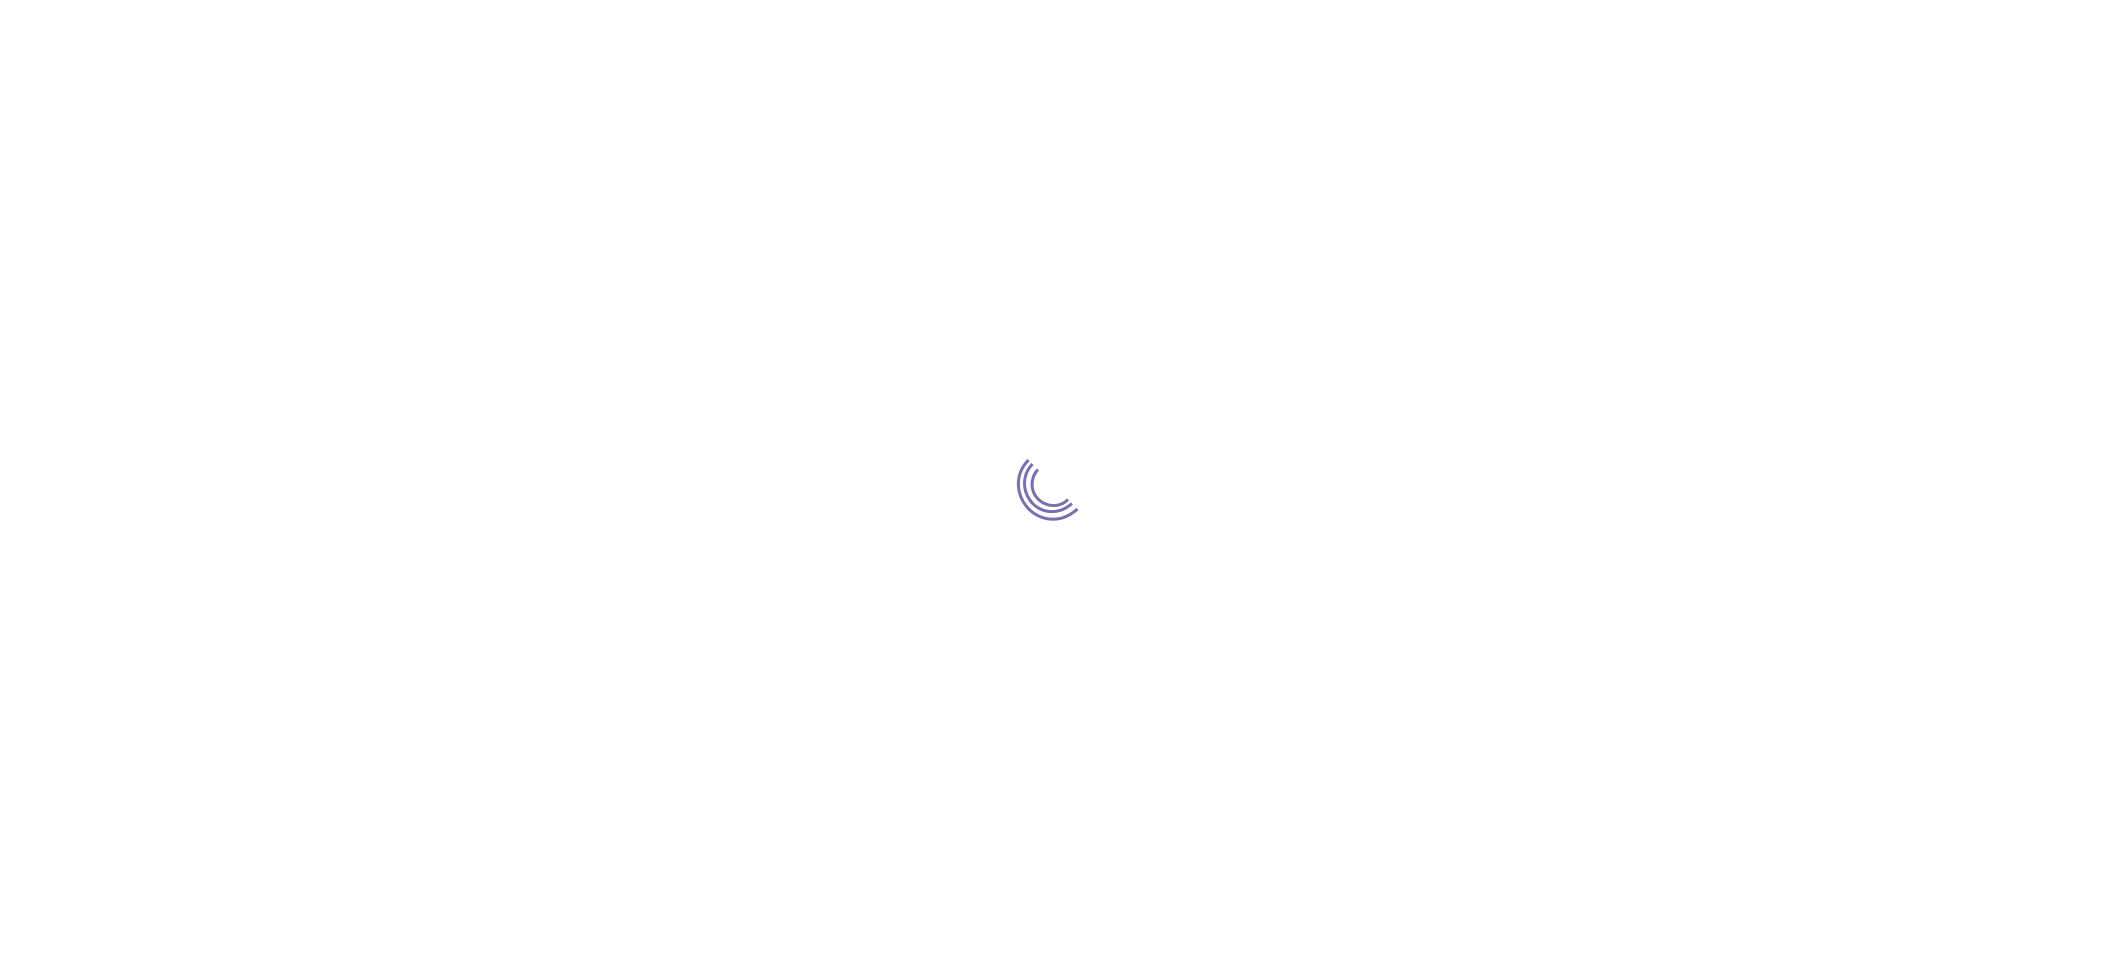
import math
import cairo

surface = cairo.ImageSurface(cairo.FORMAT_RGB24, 2104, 967)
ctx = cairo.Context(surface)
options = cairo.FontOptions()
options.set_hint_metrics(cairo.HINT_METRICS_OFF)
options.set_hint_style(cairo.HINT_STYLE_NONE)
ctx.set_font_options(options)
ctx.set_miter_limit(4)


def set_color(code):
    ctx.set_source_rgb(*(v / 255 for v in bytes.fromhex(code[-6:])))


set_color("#ffffff")
ctx.paint()
ctx.new_path()
ctx.move_to(1077.5, 509)
ctx.curve_to(1072.5, 513.5, 1066.5, 517, 1060, 518.5)
ctx.curve_to(1026.5, 525, 1004.5, 484, 1028.5, 460)
ctx.move_to(1072, 503.5)
ctx.curve_to(1068, 507, 1063, 510, 1057.5, 511)
ctx.curve_to(1031, 516.5, 1013.5, 483.5, 1032.5, 464)
ctx.move_to(1068, 499.5)
ctx.curve_to(1053.5, 514, 1028.5, 500.5, 1032.5, 480.5)
ctx.curve_to(1033, 476.5, 1035, 472.5, 1038, 469.5)
set_color("#776eb3")
ctx.set_line_width(3)
ctx.stroke()
surface.write_to_png("output.png")
